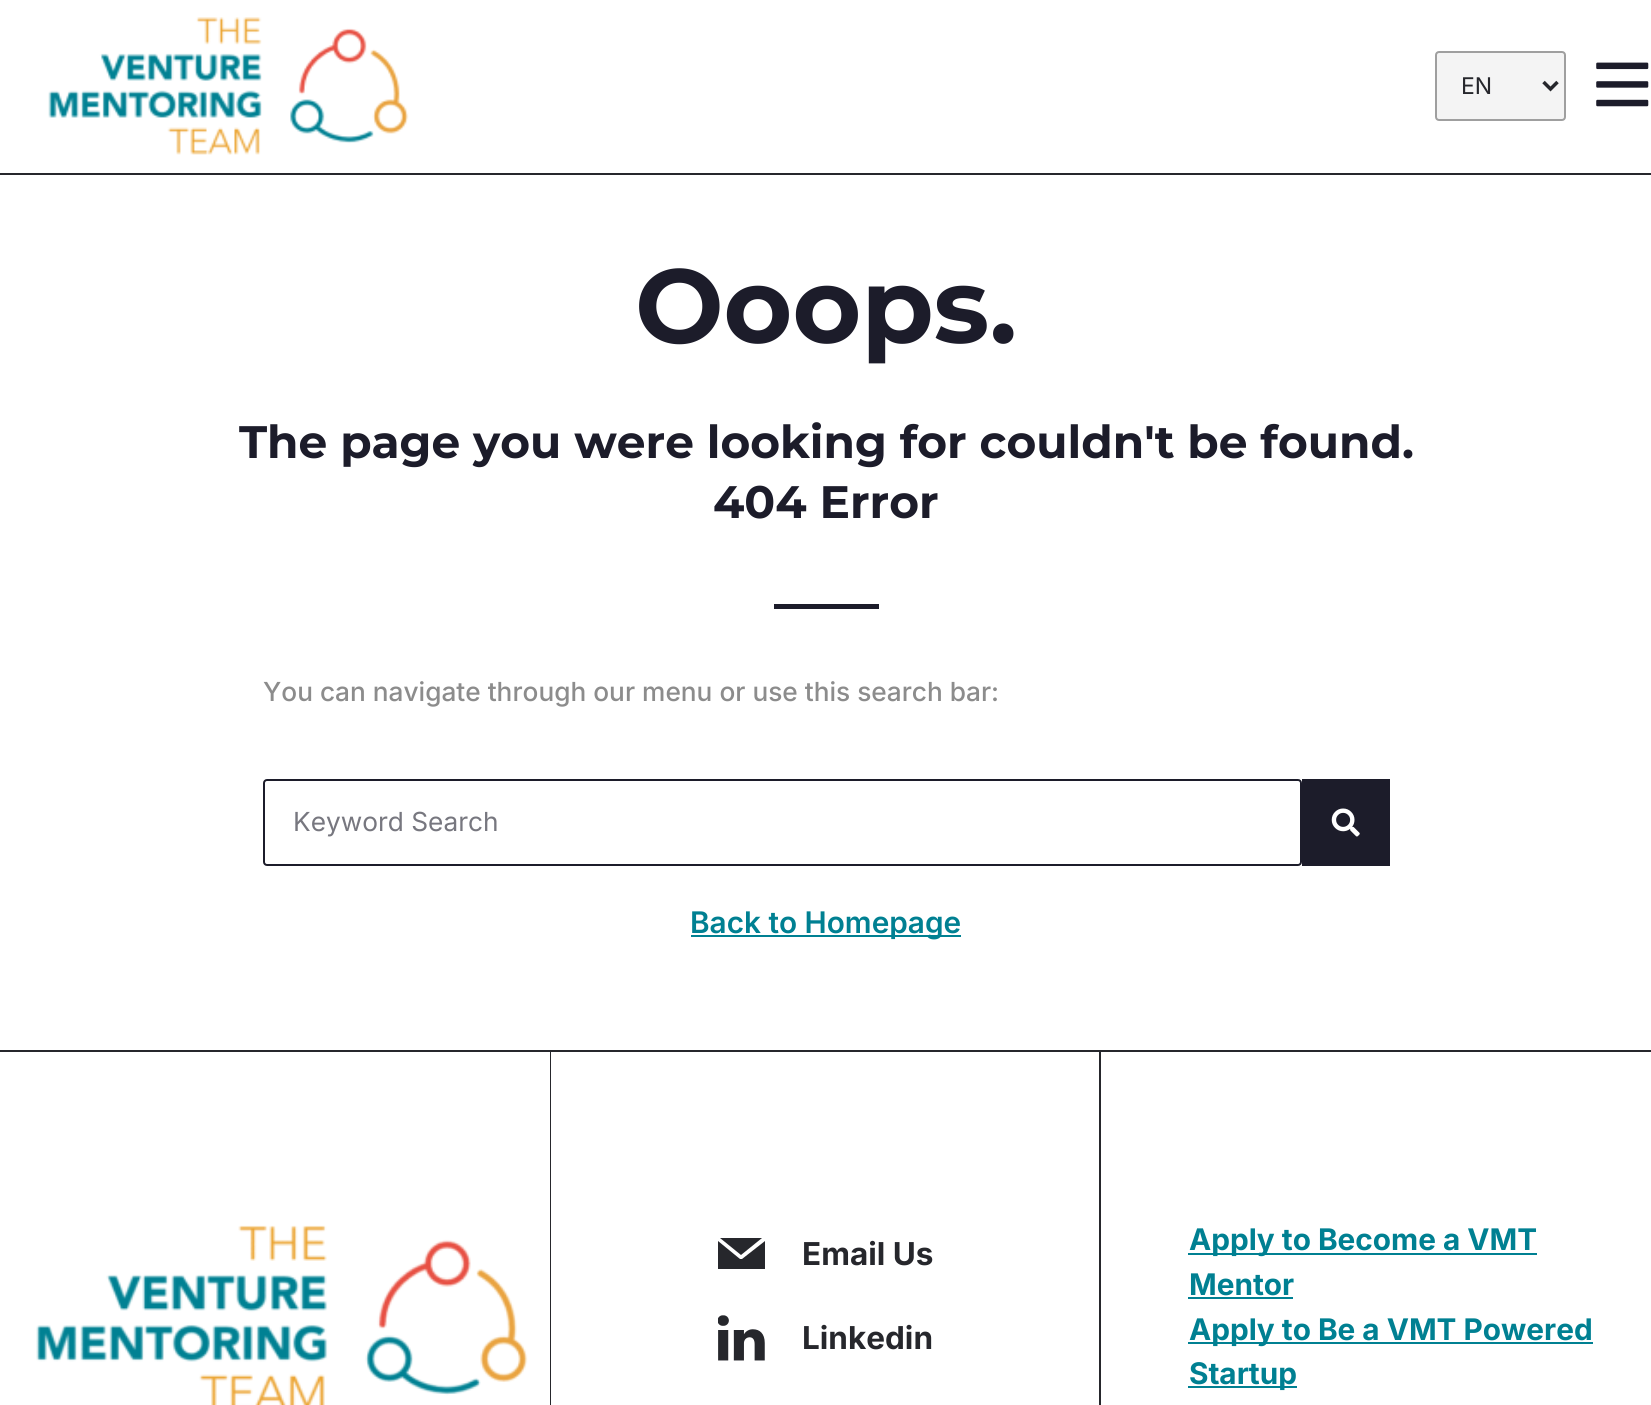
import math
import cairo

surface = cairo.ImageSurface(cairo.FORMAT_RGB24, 1651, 1405)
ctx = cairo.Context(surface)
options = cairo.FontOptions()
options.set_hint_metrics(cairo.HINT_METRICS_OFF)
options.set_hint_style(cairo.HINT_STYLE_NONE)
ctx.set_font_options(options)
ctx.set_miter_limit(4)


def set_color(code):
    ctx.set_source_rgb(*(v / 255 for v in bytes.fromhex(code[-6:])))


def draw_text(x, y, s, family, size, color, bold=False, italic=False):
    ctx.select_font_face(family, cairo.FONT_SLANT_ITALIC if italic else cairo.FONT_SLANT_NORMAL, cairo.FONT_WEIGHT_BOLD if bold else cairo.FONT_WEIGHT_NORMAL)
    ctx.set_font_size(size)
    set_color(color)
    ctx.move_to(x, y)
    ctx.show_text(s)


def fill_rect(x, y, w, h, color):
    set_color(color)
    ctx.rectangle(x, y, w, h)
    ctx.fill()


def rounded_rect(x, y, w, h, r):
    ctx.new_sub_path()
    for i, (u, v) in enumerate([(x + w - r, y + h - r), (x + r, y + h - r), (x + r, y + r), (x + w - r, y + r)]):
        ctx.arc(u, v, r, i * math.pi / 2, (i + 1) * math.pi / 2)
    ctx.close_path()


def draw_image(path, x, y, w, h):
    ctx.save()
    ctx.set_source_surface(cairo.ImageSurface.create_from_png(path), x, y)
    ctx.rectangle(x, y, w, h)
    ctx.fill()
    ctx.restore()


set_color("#ffffff")
ctx.paint()
fill_rect(0, 173, 1651, 2, "#26272c")
draw_image("assets/img1.png", 48, 17, 361, 138)
set_color("#f4f4f4")
rounded_rect(1436, 52, 129, 68, 3)
ctx.fill_preserve()
set_color("#9f9f9f")
ctx.stroke()
ctx.new_path()
ctx.move_to(1543.5, 82)
ctx.line_to(1550.5, 89)
ctx.line_to(1557.5, 82)
set_color("#26272c")
ctx.set_line_width(3.5)
ctx.stroke()
draw_text(1461, 94, "EN", "Inter", 23, "#26272c")
draw_image("assets/img2.png", 1596, 62, 53, 45)
draw_text(635, 343, "Ooops.", "Montserrat", 105, "#1c1c2a", bold=True)
draw_text(239, 458, "The page you were looking for couldn't be found.", "Montserrat", 45.5, "#1c1c2a", bold=True)
draw_text(713, 518, "404 Error", "Montserrat", 45.5, "#1c1c2a", bold=True)
fill_rect(774, 604, 105, 5, "#1c1c2a")
draw_text(263, 701, "You can navigate through our menu or use this search bar:", "Inter Medium", 26.25, "#8c8c8c")
rounded_rect(264, 780, 1037, 85, 3)
set_color("#1c1c2a")
ctx.set_line_width(2)
ctx.stroke()
draw_text(293, 831, "Keyword Search", "Inter", 26.25, "#77777f")
fill_rect(1302, 779, 88, 87, "#1c1c2a")
draw_image("assets/img3.png", 1331, 808, 29, 29)
fill_rect(691, 935, 270, 2, "#008092")
draw_text(690, 933, "Back to Homepage", "Inter SemiBold", 29.75, "#008092")
fill_rect(0, 1050, 1651, 2, "#26272c")
fill_rect(550, 1050, 1, 355, "#26272c")
draw_image("assets/img4.png", 36, 1225, 492, 180)
fill_rect(1099, 1050, 2, 355, "#26272c")
ctx.new_path()
ctx.move_to(720, 1238)
ctx.line_to(741, 1255)
ctx.line_to(762, 1238)
ctx.close_path()
ctx.move_to(718, 1241)
ctx.line_to(718, 1269)
ctx.line_to(765, 1269)
ctx.line_to(765, 1241)
ctx.line_to(742, 1259)
ctx.curve_to(742, 1259, 741, 1259, 740, 1259)
ctx.close_path()
ctx.fill()
draw_text(802, 1265, "Email Us", "Inter", 31.5, "#26272c", bold=True)
draw_image("assets/img5.png", 718, 1315, 47, 46)
draw_text(802, 1349, "Linkedin", "Inter", 31.5, "#26272c", bold=True)
fill_rect(1188, 1253, 349, 2, "#008092")
draw_text(1189, 1250, "Apply to Become a VMT", "Inter", 29.75, "#008092", bold=True)
draw_text(1189, 1295, "Mentor", "Inter", 29.75, "#008092", bold=True)
fill_rect(1188, 1297, 105, 2, "#008092")
fill_rect(1188, 1342, 405, 2, "#008092")
draw_text(1189, 1340, "Apply to Be a VMT Powered", "Inter", 29.75, "#008092", bold=True)
fill_rect(1188, 1386, 109, 2, "#008092")
draw_text(1189, 1384, "Startup", "Inter", 29.75, "#008092", bold=True)
surface.write_to_png("output.png")
